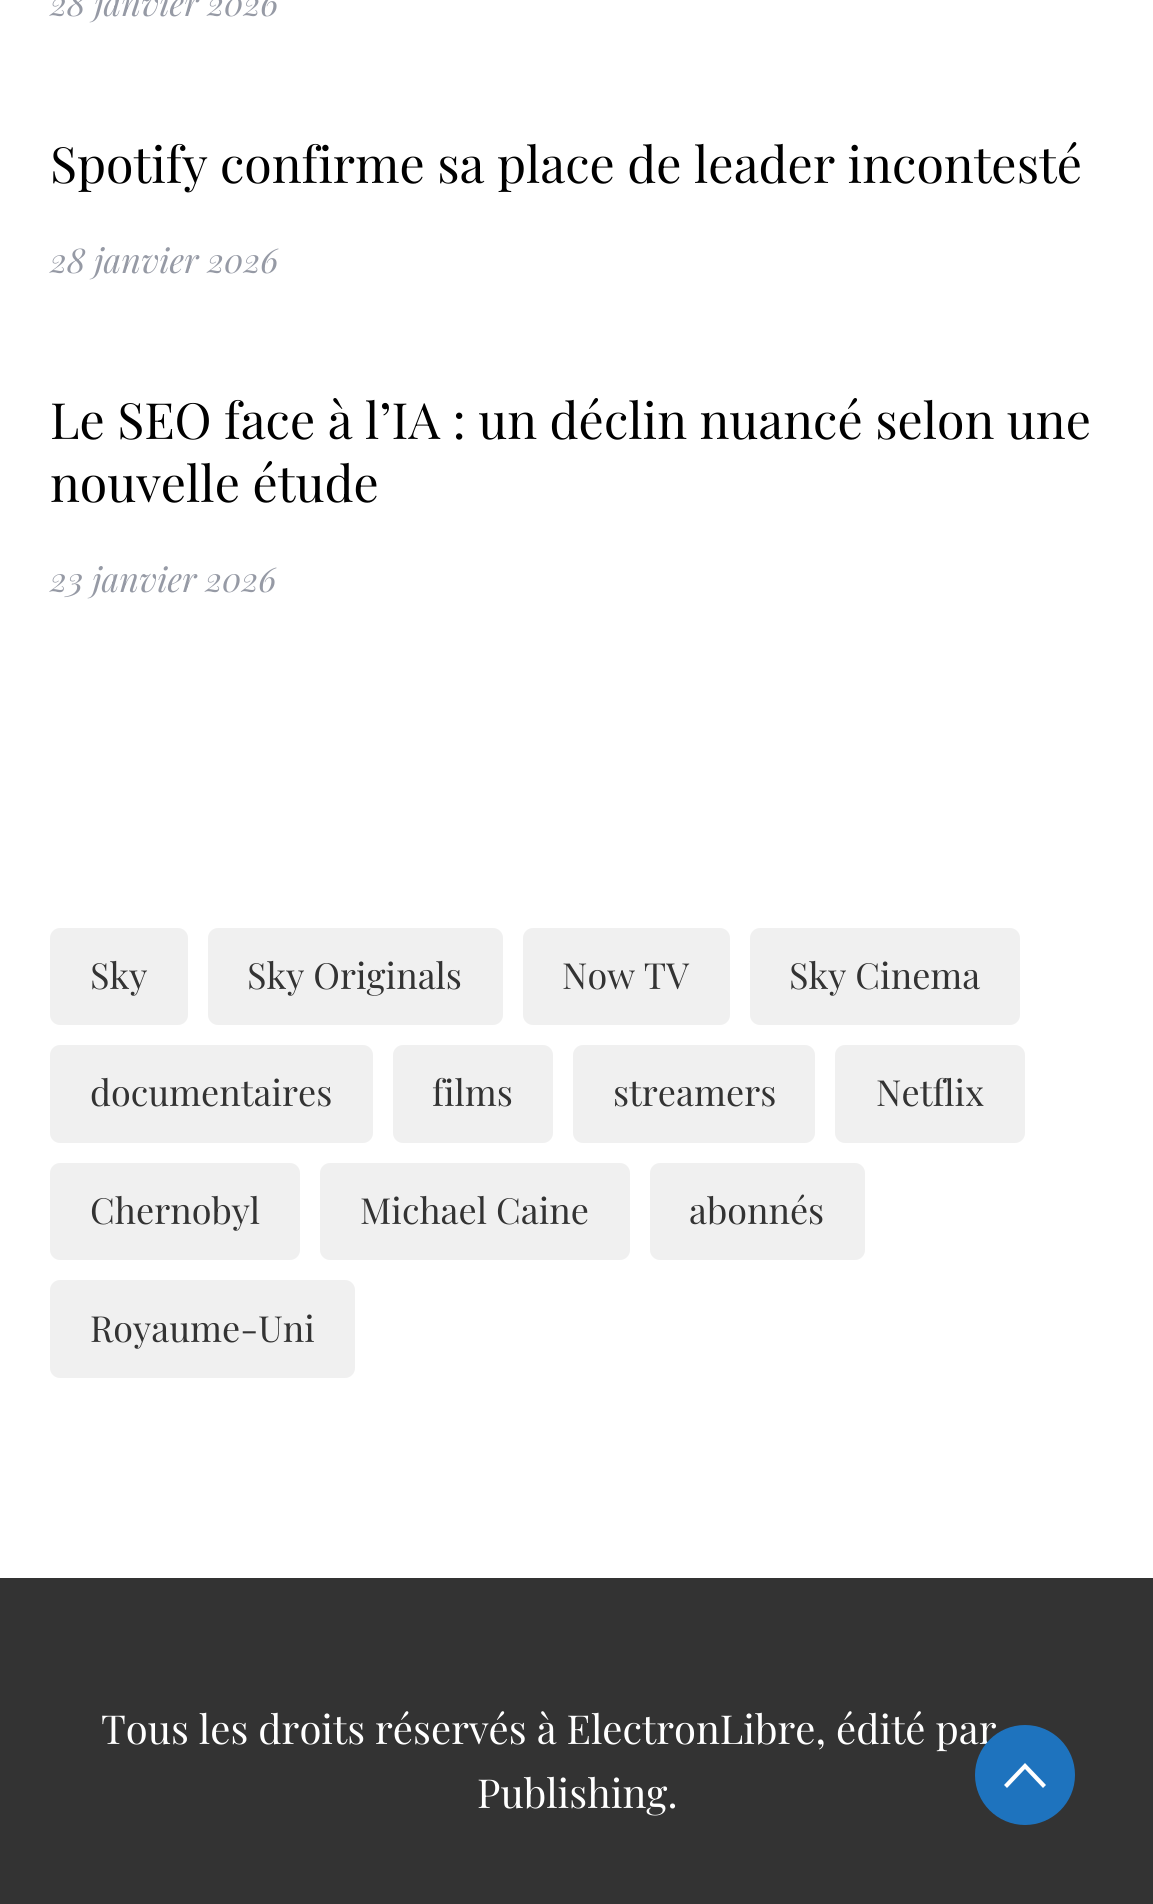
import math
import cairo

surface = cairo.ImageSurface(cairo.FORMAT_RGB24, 1153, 1904)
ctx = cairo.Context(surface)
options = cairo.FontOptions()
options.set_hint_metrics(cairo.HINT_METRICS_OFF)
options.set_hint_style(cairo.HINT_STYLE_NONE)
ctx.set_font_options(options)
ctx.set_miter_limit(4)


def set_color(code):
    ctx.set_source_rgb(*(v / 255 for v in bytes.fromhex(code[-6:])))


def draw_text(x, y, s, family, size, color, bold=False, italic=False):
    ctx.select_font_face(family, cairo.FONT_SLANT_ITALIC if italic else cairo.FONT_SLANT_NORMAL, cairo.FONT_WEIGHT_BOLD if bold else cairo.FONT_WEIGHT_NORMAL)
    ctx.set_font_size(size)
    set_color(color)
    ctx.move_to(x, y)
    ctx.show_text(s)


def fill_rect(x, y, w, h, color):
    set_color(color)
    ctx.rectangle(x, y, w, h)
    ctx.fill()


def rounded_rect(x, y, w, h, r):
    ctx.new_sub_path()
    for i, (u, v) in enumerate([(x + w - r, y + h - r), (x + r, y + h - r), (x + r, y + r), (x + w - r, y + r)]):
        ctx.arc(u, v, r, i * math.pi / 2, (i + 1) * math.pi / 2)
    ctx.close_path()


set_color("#ffffff")
ctx.paint()
draw_text(50, 16, "28 janvier 2026", "Playfair Display", 34, "#969aa5", italic=True)
draw_text(50, 183, "Spotify confirme sa place de leader incontesté", "Playfair Display", 50, "#000000")
draw_text(50, 273, "28 janvier 2026", "Playfair Display", 34, "#969aa5", italic=True)
draw_text(50, 439, "Le SEO face à l’IA : un déclin nuancé selon une", "Playfair Display", 50, "#000000")
draw_text(50, 502, "nouvelle étude", "Playfair Display", 50, "#000000")
draw_text(50, 592, "23 janvier 2026", "Playfair Display", 34, "#969aa5", italic=True)
set_color("#f0f0f0")
rounded_rect(50, 928, 138, 97, 10)
ctx.fill()
draw_text(90, 989, "Sky", "Playfair Display", 36, "#333333")
set_color("#f0f0f0")
rounded_rect(208, 928, 295, 97, 10)
ctx.fill()
draw_text(247, 989, "Sky Originals", "Playfair Display", 36, "#333333")
set_color("#f0f0f0")
rounded_rect(523, 928, 207, 97, 10)
ctx.fill()
draw_text(562, 989, "Now TV", "Playfair Display", 36, "#333333")
set_color("#f0f0f0")
rounded_rect(750, 928, 270, 97, 10)
ctx.fill()
draw_text(789, 989, "Sky Cinema", "Playfair Display", 36, "#333333")
set_color("#f0f0f0")
rounded_rect(50, 1045, 323, 98, 10)
ctx.fill()
draw_text(90, 1106, "documentaires", "Playfair Display", 36, "#333333")
set_color("#f0f0f0")
rounded_rect(393, 1045, 160, 98, 10)
ctx.fill()
draw_text(432, 1106, "films", "Playfair Display", 36, "#333333")
set_color("#f0f0f0")
rounded_rect(573, 1045, 242, 98, 10)
ctx.fill()
draw_text(613, 1106, "streamers", "Playfair Display", 36, "#333333")
set_color("#f0f0f0")
rounded_rect(835, 1045, 190, 98, 10)
ctx.fill()
draw_text(876, 1106, "Netflix", "Playfair Display", 36, "#333333")
set_color("#f0f0f0")
rounded_rect(50, 1163, 250, 97, 10)
ctx.fill()
draw_text(90, 1224, "Chernobyl", "Playfair Display", 36, "#333333")
set_color("#f0f0f0")
rounded_rect(320, 1163, 310, 97, 10)
ctx.fill()
draw_text(360, 1224, "Michael Caine", "Playfair Display", 36, "#333333")
set_color("#f0f0f0")
rounded_rect(650, 1163, 215, 97, 10)
ctx.fill()
draw_text(689, 1224, "abonnés", "Playfair Display", 36, "#333333")
set_color("#f0f0f0")
rounded_rect(50, 1280, 305, 98, 10)
ctx.fill()
draw_text(90, 1342, "Royaume-Uni", "Playfair Display", 36, "#333333")
fill_rect(0, 1578, 1153, 326, "#333333")
draw_text(101, 1744, "Tous les droits réservés à ElectronLibre, édité par", "Playfair Display", 40, "#ffffff")
draw_text(477, 1808, "Publishing.", "Playfair Display", 40, "#ffffff")
set_color("#1e73be")
ctx.new_path()
ctx.arc(1025, 1775, 50, 0, 2 * math.pi)
ctx.fill()
set_color("#ffffff")
ctx.new_path()
ctx.move_to(1046, 1785)
ctx.line_to(1043, 1788)
ctx.line_to(1025, 1769)
ctx.line_to(1007, 1788)
ctx.line_to(1004, 1785)
ctx.line_to(1025, 1763)
ctx.line_to(1046, 1785)
ctx.fill()
surface.write_to_png("output.png")
